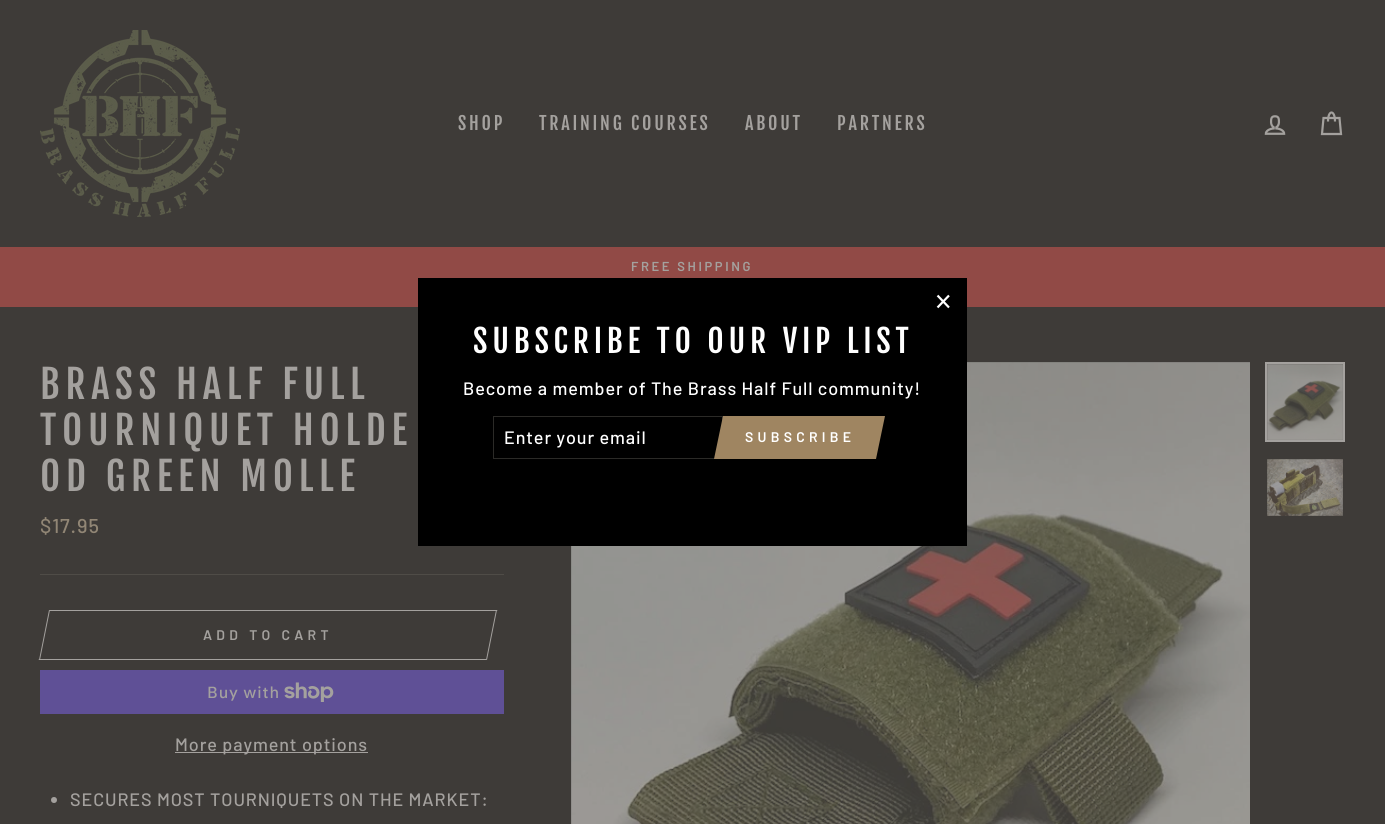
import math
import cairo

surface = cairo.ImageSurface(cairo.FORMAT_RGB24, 1385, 824)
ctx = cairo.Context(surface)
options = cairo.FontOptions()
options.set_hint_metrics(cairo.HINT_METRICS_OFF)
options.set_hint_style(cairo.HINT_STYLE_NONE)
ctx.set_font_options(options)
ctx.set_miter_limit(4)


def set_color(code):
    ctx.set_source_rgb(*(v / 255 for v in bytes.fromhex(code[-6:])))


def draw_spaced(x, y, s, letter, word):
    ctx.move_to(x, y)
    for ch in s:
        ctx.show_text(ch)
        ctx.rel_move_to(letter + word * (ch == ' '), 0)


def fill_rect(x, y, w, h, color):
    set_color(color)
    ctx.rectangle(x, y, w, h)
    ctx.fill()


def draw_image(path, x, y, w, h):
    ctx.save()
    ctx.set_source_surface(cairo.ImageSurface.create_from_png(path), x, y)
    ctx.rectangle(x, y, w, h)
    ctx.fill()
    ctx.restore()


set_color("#3e3b38")
ctx.paint()
draw_image("assets/img1.png", 40, 30, 200, 187)
ctx.select_font_face("Fjalla One")
ctx.set_font_size(18)
set_color("#a4a19e")
draw_spaced(458, 130, "SHOP", 2.75, 0)
draw_spaced(539, 130, "TRAINING COURSES", 2.75, 0)
draw_spaced(745, 130, "ABOUT", 2.75, 0)
draw_spaced(837, 130, "PARTNERS", 2.75, 0)
draw_image("assets/img2.png", 1264, 115, 22, 20)
ctx.new_path()
ctx.move_to(1328, 121.5)
ctx.curve_to(1328, 109.5, 1335, 109.5, 1335, 121.5)
ctx.move_to(1323.5, 118)
ctx.line_to(1339.5, 118)
ctx.line_to(1341, 134)
ctx.line_to(1322, 134)
ctx.close_path()
ctx.set_line_width(2.2)
ctx.stroke()
fill_rect(0, 247, 1385, 60, "#914a46")
ctx.select_font_face("Barlow SemiBold")
ctx.set_font_size(13)
set_color("#a4a19e")
draw_spaced(631, 271, "FREE SHIPPING", 2.6, 0)
ctx.select_font_face("Fjalla One")
ctx.set_font_size(38.75)
draw_spaced(40, 399, "BRASS HALF FULL", 5.75, 0)
draw_spaced(40, 445, "TOURNIQUET HOLDE", 5.75, 0)
draw_spaced(40, 491, "OD GREEN MOLLE", 5.75, 0)
ctx.select_font_face("Barlow Medium")
ctx.set_font_size(20)
set_color("#918675")
draw_spaced(40, 533, "$17.95", 0.9, 0)
fill_rect(40, 574, 464, 1, "#4f4c47")
fill_rect(50, 610, 436, 1, "#a4a19e")
fill_rect(50, 659, 436, 1, "#a4a19e")
ctx.new_path()
ctx.move_to(39, 659)
ctx.line_to(59, 659)
ctx.line_to(58.5, 660)
ctx.line_to(38.5, 660)
ctx.close_path()
ctx.fill()
ctx.new_path()
ctx.move_to(49, 610)
ctx.line_to(50, 610)
ctx.line_to(40, 660)
ctx.line_to(39, 660)
ctx.close_path()
ctx.fill()
ctx.select_font_face("Barlow SemiBold")
ctx.set_font_size(14)
draw_spaced(203, 640, "ADD TO CART", 4.25, 0)
ctx.new_path()
ctx.move_to(477.5, 610)
ctx.line_to(497.5, 610)
ctx.line_to(497, 611)
ctx.line_to(477, 611)
ctx.close_path()
ctx.fill()
ctx.new_path()
ctx.move_to(496, 610)
ctx.line_to(497, 610)
ctx.line_to(487, 660)
ctx.line_to(486, 660)
ctx.close_path()
ctx.fill()
fill_rect(40, 670, 464, 44, "#5f5096")
ctx.select_font_face("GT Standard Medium")
ctx.set_font_size(16)
set_color("#a4a19e")
draw_spaced(207, 698, "Buy with", 0.9, 0)
draw_image("assets/img3.png", 284, 682, 50, 20)
fill_rect(175, 752, 193, 1, "#a4a19e")
ctx.select_font_face("Barlow Medium")
ctx.set_font_size(18)
draw_spaced(175, 751, "More payment options", 0.9, 0)
ctx.new_path()
ctx.arc(54, 800, 3, 0, 2 * math.pi)
ctx.fill()
draw_spaced(70, 806, "SECURES MOST TOURNIQUETS ON THE MARKET:", 0.9, 0)
draw_image("assets/img4.png", 571, 362, 679, 462)
ctx.rectangle(1266, 363, 78, 78)
ctx.set_line_width(2)
ctx.stroke()
draw_image("assets/img5.png", 1267, 364, 76, 76)
draw_image("assets/img6.png", 1267, 459, 76, 57)
fill_rect(418, 278, 549, 268, "#000000")
ctx.new_path()
ctx.move_to(937.5, 295.5)
ctx.line_to(949, 307.5)
ctx.move_to(949, 295.5)
ctx.line_to(937.5, 307.5)
set_color("#ffffff")
ctx.set_line_width(2.2)
ctx.stroke()
ctx.select_font_face("Fjalla One")
ctx.set_font_size(31.5)
draw_spaced(473, 353, "SUBSCRIBE TO OUR VIP LIST", 4.75, 0)
ctx.select_font_face("Barlow Medium")
ctx.set_font_size(18)
draw_spaced(463, 395, "Become a member of The Brass Half Full community!", 0.9, 0)
ctx.rectangle(493.5, 416.5, 229, 42)
set_color("#2b2a27")
ctx.set_line_width(1)
ctx.stroke()
set_color("#ffffff")
draw_spaced(504, 444, "Enter your email", 0.9, 0)
fill_rect(734, 416, 131, 43, "#9f8561")
ctx.new_path()
ctx.move_to(723, 416)
ctx.line_to(743, 416)
ctx.line_to(734, 459)
ctx.line_to(714, 459)
ctx.close_path()
ctx.fill()
ctx.select_font_face("Barlow SemiBold")
ctx.set_font_size(14)
set_color("#ffffff")
draw_spaced(745, 442, "SUBSCRIBE", 4.25, 0)
set_color("#9f8561")
ctx.new_path()
ctx.move_to(865, 416)
ctx.line_to(885, 416)
ctx.line_to(876, 459)
ctx.line_to(856, 459)
ctx.close_path()
ctx.fill()
surface.write_to_png("output.png")
